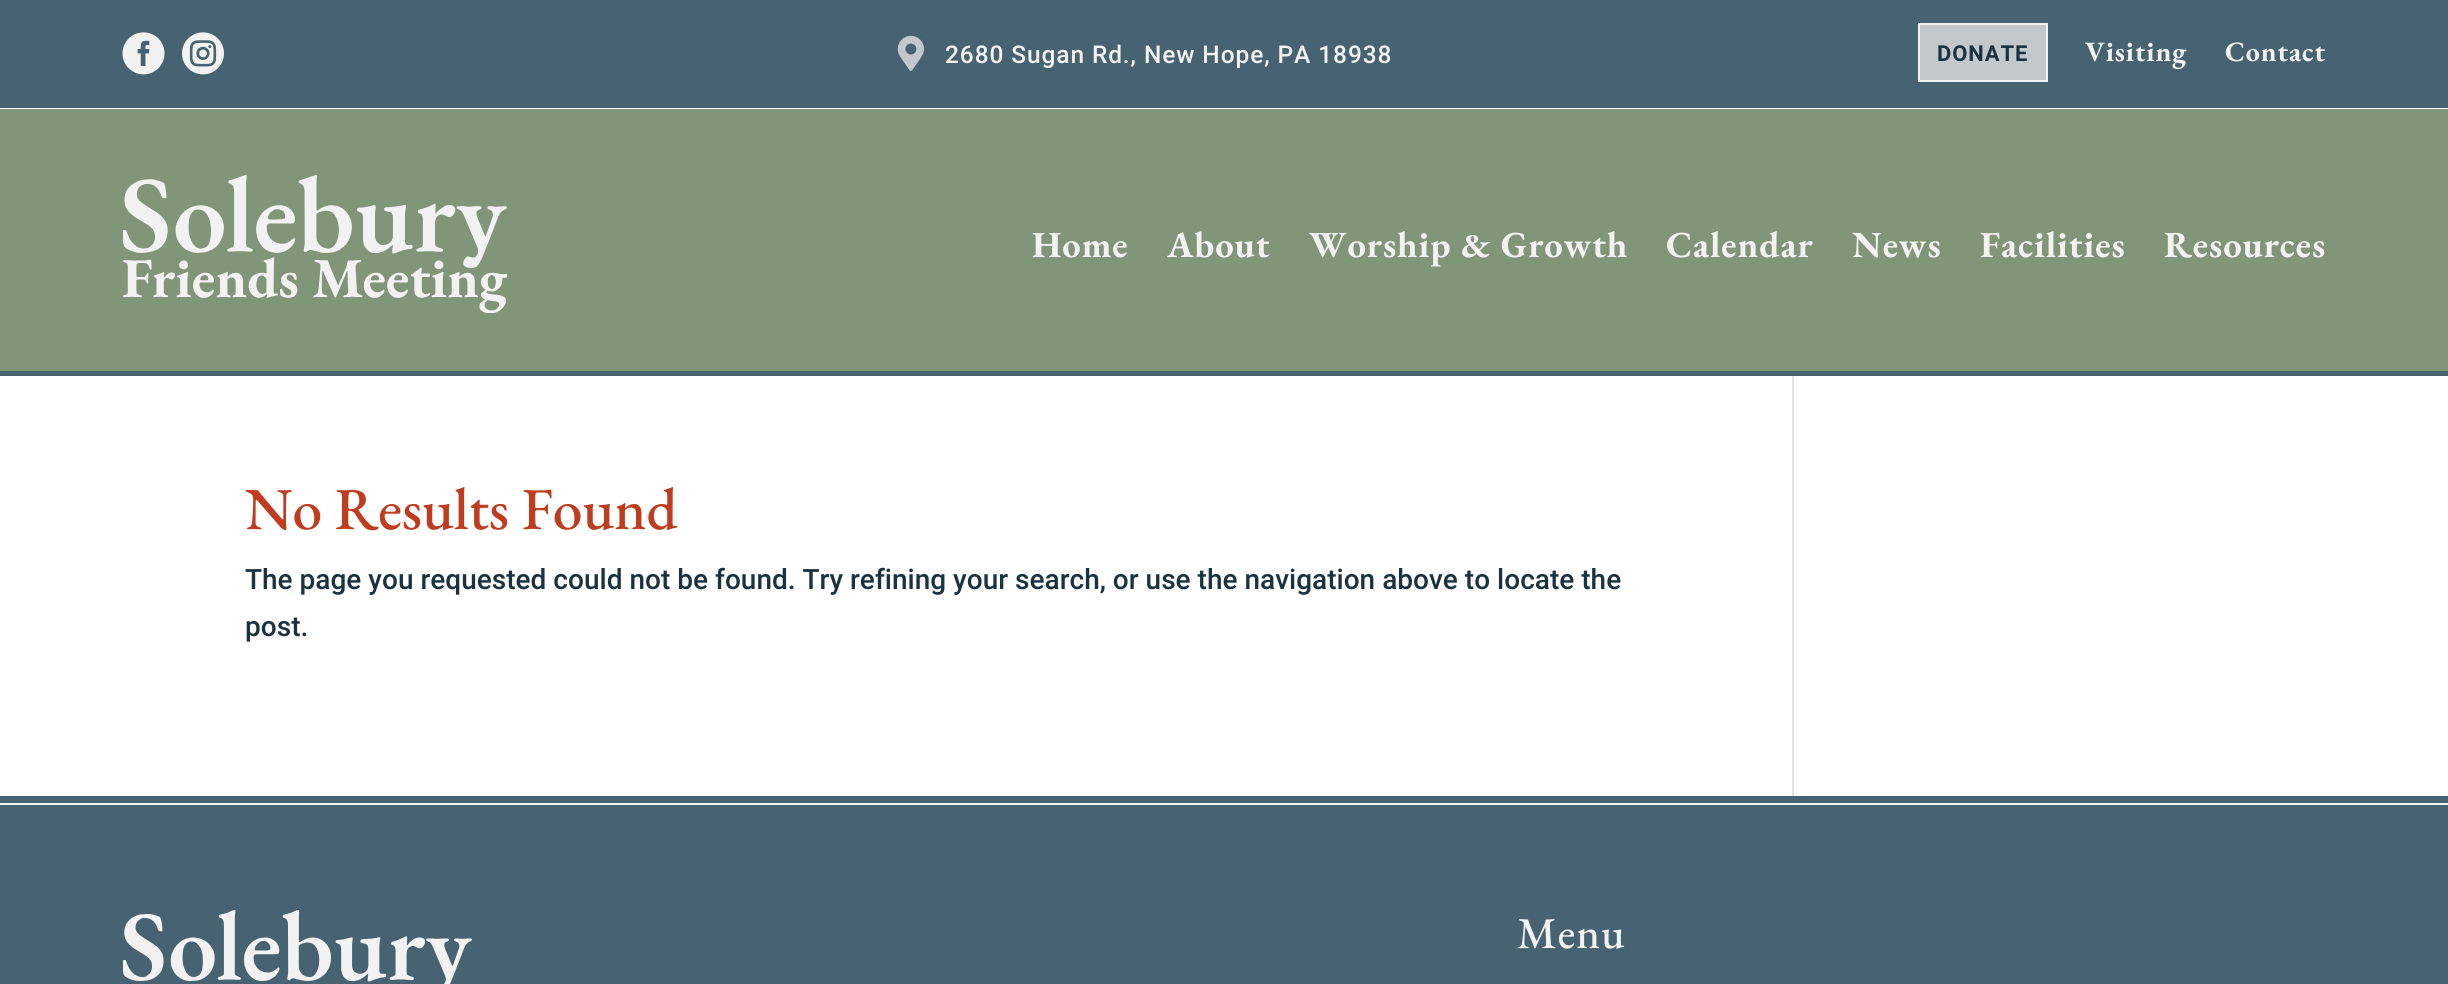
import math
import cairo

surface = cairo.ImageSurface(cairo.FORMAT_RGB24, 2448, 984)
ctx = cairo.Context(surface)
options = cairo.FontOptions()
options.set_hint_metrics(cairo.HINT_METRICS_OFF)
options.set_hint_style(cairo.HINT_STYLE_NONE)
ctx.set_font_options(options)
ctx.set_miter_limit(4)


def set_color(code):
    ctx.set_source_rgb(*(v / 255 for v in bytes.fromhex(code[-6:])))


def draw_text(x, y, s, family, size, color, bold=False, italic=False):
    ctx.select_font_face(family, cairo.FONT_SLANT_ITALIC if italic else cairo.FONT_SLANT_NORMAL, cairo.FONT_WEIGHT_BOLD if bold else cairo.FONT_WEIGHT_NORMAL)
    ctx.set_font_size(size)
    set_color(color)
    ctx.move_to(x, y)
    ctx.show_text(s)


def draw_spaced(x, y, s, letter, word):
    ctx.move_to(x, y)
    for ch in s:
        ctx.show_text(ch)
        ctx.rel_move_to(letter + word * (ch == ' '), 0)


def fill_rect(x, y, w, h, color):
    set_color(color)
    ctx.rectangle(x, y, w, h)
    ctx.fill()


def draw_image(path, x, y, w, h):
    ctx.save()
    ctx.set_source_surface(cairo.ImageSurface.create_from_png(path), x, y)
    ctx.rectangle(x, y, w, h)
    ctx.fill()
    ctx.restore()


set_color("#ffffff")
ctx.paint()
fill_rect(0, 0, 2448, 108, "#476371")
draw_image("assets/img1.png", 122, 32, 43, 43)
draw_image("assets/img2.png", 182, 32, 42, 43)
draw_image("assets/img3.png", 897, 35, 27, 36)
ctx.select_font_face("Roboto Medium")
ctx.set_font_size(24.5)
set_color("#f2f2f2")
draw_spaced(945, 63, "2680 Sugan Rd., New Hope, PA 18938", 0.9, 0)
set_color("#c2c8cc")
ctx.rectangle(1919, 24, 128, 57)
ctx.fill_preserve()
set_color("#f2f2f2")
ctx.stroke()
ctx.select_font_face("Roboto", cairo.FONT_SLANT_NORMAL, cairo.FONT_WEIGHT_BOLD)
ctx.set_font_size(22)
set_color("#193340")
draw_spaced(1937, 61, "DONATE", 0.9, 0)
ctx.select_font_face("EB Garamond", cairo.FONT_SLANT_NORMAL, cairo.FONT_WEIGHT_BOLD)
ctx.set_font_size(28)
set_color("#f2f2f2")
draw_spaced(2085, 61, "Visiting", 0.9, 0)
draw_spaced(2225, 61, "Contact", 0.9, 0)
fill_rect(0, 109, 2448, 262, "#819578")
fill_rect(0, 371, 2448, 5, "#476371")
draw_image("assets/img4.png", 123, 175, 385, 138)
ctx.set_font_size(36.75)
set_color("#f2f2f2")
draw_spaced(1032, 257, "Home", 0.9, 0)
draw_spaced(1167, 257, "About", 0.9, 0)
draw_spaced(1309, 257, "Worship & Growth", 0.9, 0)
draw_spaced(1666, 257, "Calendar", 0.9, 0)
draw_spaced(1852, 257, "News", 0.9, 0)
draw_spaced(1980, 257, "Facilities", 0.9, 0)
draw_spaced(2164, 257, "Resources", 0.9, 0)
draw_text(245, 529, "No Results Found", "EB Garamond Medium", 59.5, "#bf3c1f")
draw_text(245, 589, "The page you requested could not be found. Try refining your search, or use the navigation above to locate the", "Roboto Medium", 28, "#193340")
draw_text(245, 636, "post.", "Roboto Medium", 28, "#193340")
fill_rect(1792, 376, 2, 420, "#e2e2e2")
fill_rect(0, 796, 2448, 188, "#476371")
fill_rect(0, 803, 2448, 2, "#f2f2f2")
draw_image("assets/img5.png", 123, 910, 349, 74)
ctx.select_font_face("EB Garamond Medium")
ctx.set_font_size(44)
draw_spaced(1517, 948, "Menu", 0.9, 0)
surface.write_to_png("output.png")
